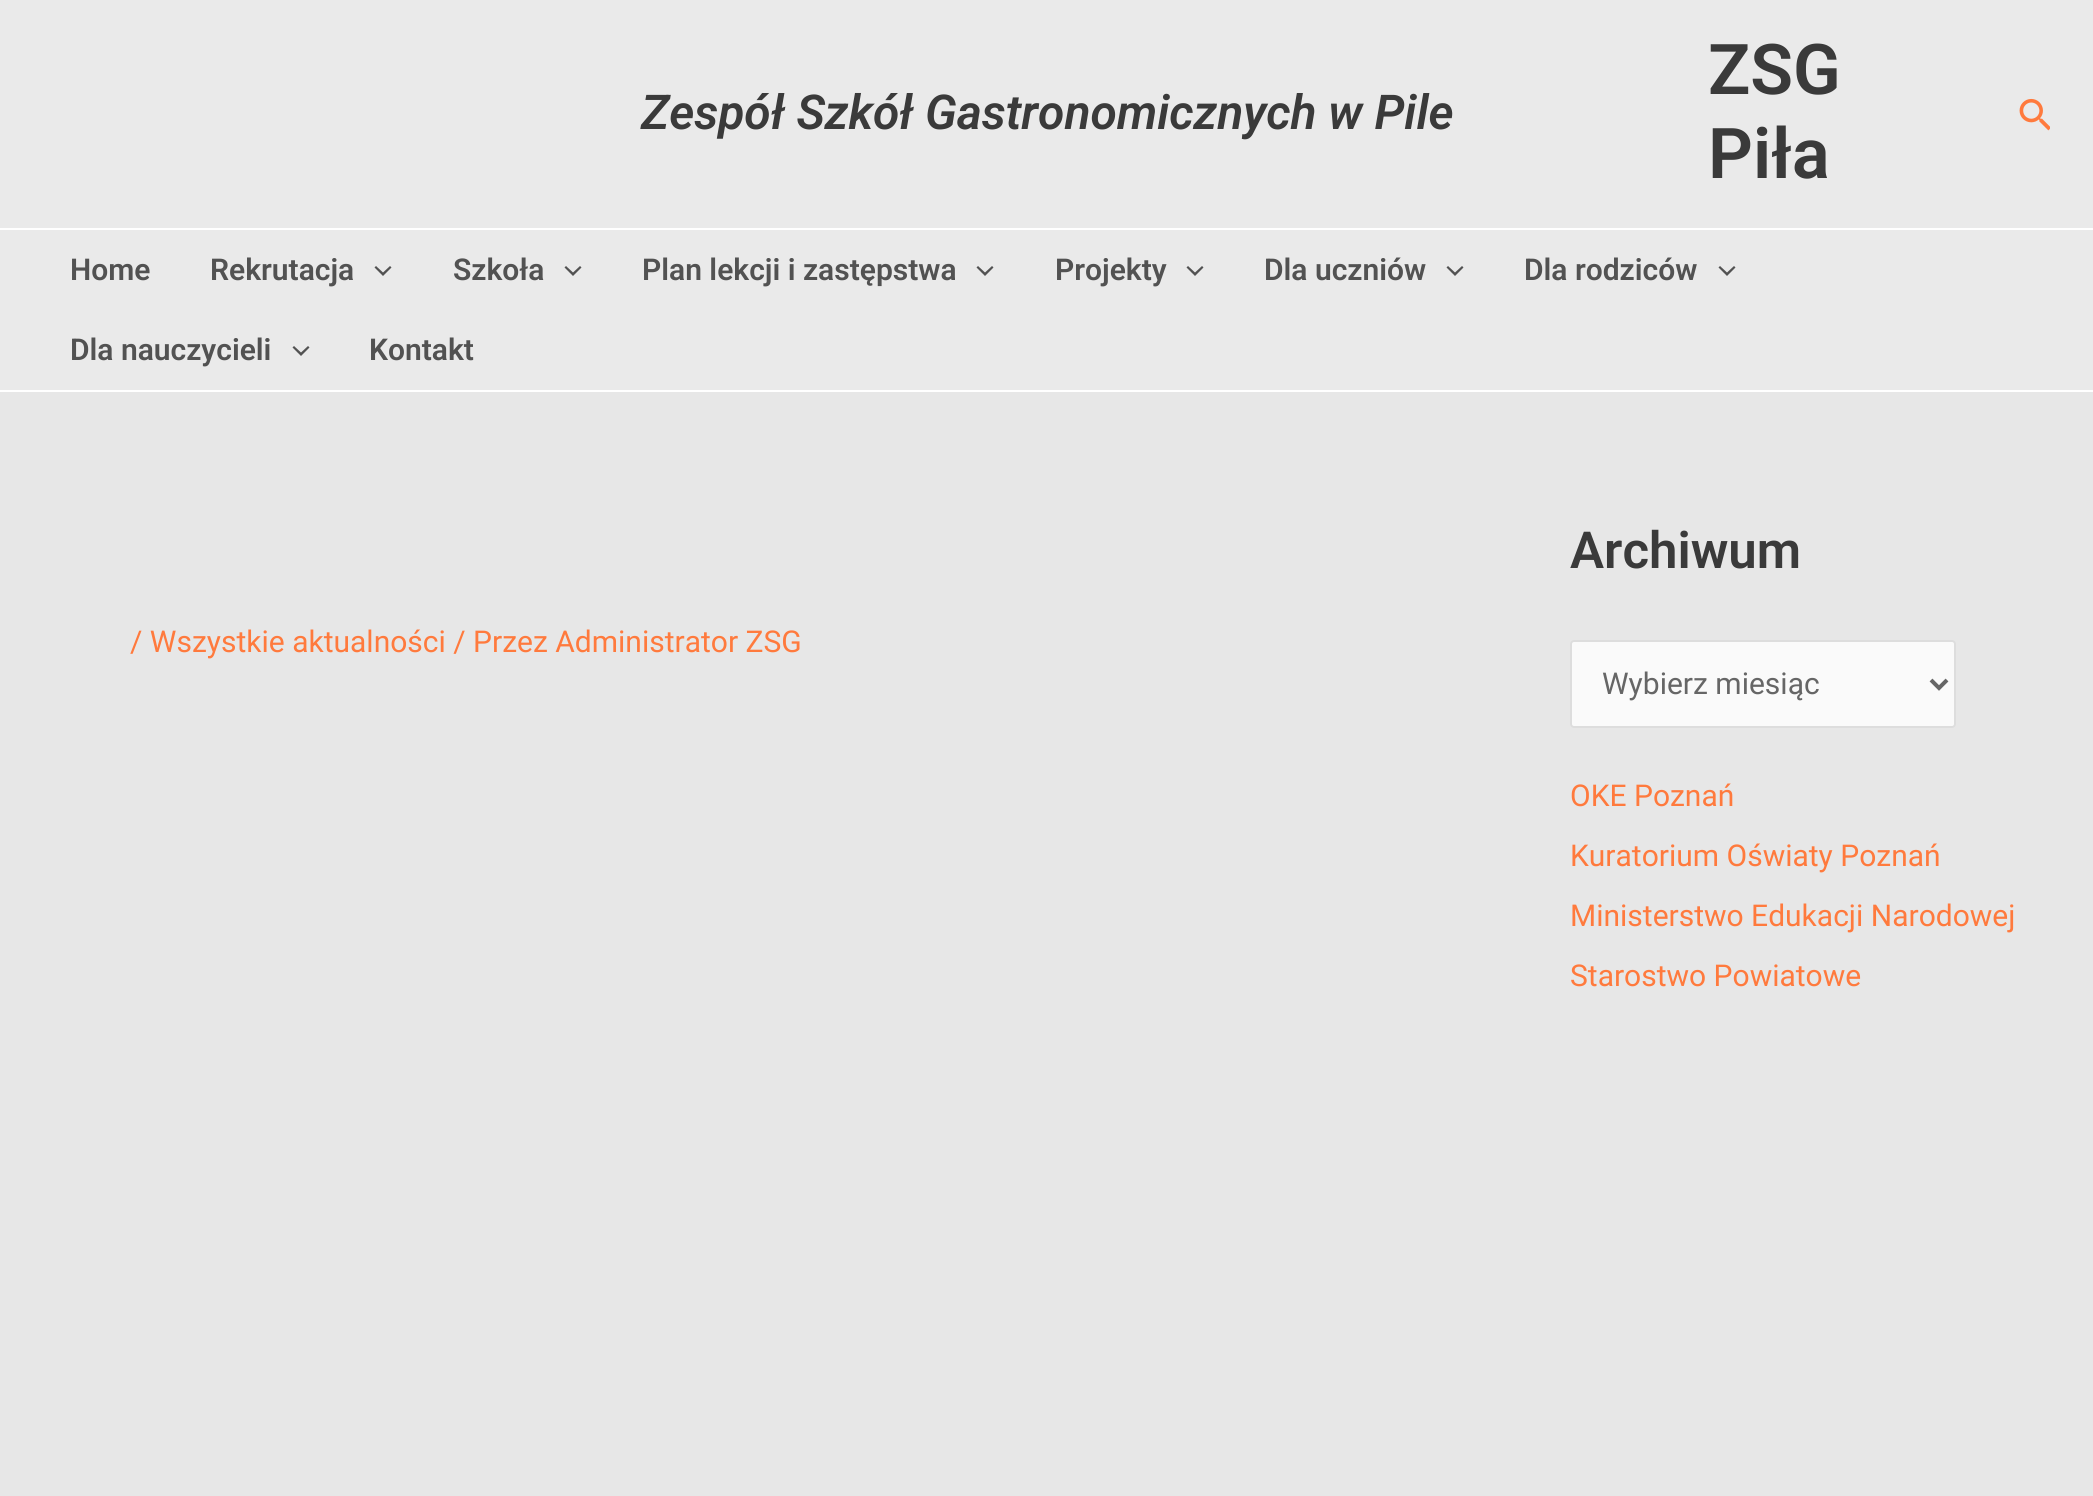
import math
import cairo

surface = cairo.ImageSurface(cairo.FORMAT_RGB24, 2093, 1496)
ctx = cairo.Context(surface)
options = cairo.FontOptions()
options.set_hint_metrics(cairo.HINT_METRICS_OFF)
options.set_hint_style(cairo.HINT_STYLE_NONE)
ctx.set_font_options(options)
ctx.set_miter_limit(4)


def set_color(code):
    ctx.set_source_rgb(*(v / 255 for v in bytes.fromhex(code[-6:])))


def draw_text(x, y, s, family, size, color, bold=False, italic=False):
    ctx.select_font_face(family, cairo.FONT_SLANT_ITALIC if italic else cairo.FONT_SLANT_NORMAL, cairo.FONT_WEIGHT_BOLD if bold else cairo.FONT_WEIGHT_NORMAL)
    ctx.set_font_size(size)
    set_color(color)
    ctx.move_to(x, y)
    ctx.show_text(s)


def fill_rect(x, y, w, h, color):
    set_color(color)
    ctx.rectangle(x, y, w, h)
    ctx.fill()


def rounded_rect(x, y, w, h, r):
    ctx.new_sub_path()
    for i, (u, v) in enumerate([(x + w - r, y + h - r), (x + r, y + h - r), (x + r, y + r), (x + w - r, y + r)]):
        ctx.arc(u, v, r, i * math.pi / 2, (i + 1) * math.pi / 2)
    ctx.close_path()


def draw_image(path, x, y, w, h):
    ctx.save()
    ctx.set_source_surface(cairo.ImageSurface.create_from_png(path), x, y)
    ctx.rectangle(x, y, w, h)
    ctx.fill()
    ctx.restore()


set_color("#e7e7e7")
ctx.paint()
fill_rect(0, 0, 2093, 228, "#eaeaea")
fill_rect(0, 228, 2093, 2, "#ffffff")
draw_text(641, 129, "Zespół Szkół Gastronomicznych w Pile", "Roboto SemiBold", 48, "#3a3a3a", italic=True)
draw_text(1708, 94, "ZSG", "Roboto SemiBold", 70, "#3a3a3a")
draw_text(1708, 178, "Piła", "Roboto SemiBold", 70, "#3a3a3a")
draw_image("assets/img1.png", 2019, 98, 31, 33)
fill_rect(0, 230, 2093, 160, "#eaeaea")
fill_rect(0, 390, 2093, 2, "#ffffff")
draw_text(70, 280, "Home", "Roboto SemiBold", 30, "#525252")
draw_text(210, 280, "Rekrutacja", "Roboto SemiBold", 30, "#525252")
ctx.new_path()
ctx.move_to(374.5, 267.5)
ctx.line_to(383, 276)
ctx.line_to(391.5, 267.5)
ctx.line_to(390, 266)
ctx.line_to(383, 272.5)
ctx.line_to(376, 266)
ctx.close_path()
ctx.fill()
draw_text(453, 280, "Szkoła", "Roboto SemiBold", 30, "#525252")
ctx.new_path()
ctx.move_to(564.5, 267.5)
ctx.line_to(573, 276)
ctx.line_to(581.5, 267.5)
ctx.line_to(580, 266)
ctx.line_to(573, 272.5)
ctx.line_to(566, 266)
ctx.close_path()
ctx.fill()
draw_text(642, 280, "Plan lekcji i zastępstwa", "Roboto SemiBold", 30, "#525252")
ctx.new_path()
ctx.move_to(976.5, 267.5)
ctx.line_to(985, 276)
ctx.line_to(993.5, 267.5)
ctx.line_to(992, 266)
ctx.line_to(985, 272.5)
ctx.line_to(978, 266)
ctx.close_path()
ctx.fill()
draw_text(1055, 280, "Projekty", "Roboto SemiBold", 30, "#525252")
ctx.new_path()
ctx.move_to(1186.5, 267.5)
ctx.line_to(1195, 276)
ctx.line_to(1203.5, 267.5)
ctx.line_to(1202, 266)
ctx.line_to(1195, 272.5)
ctx.line_to(1188, 266)
ctx.close_path()
ctx.fill()
draw_text(1264, 280, "Dla uczniów", "Roboto SemiBold", 30, "#525252")
ctx.new_path()
ctx.move_to(1446.5, 267.5)
ctx.line_to(1455, 276)
ctx.line_to(1463.5, 267.5)
ctx.line_to(1462, 266)
ctx.line_to(1455, 272.5)
ctx.line_to(1448, 266)
ctx.close_path()
ctx.fill()
draw_text(1524, 280, "Dla rodziców", "Roboto SemiBold", 30, "#525252")
ctx.new_path()
ctx.move_to(1718.5, 267.5)
ctx.line_to(1727, 276)
ctx.line_to(1735.5, 267.5)
ctx.line_to(1734, 266)
ctx.line_to(1727, 272.5)
ctx.line_to(1720, 266)
ctx.close_path()
ctx.fill()
draw_text(70, 360, "Dla nauczycieli", "Roboto SemiBold", 30, "#525252")
ctx.new_path()
ctx.move_to(292.5, 347.5)
ctx.line_to(301, 356)
ctx.line_to(309.5, 347.5)
ctx.line_to(308, 346)
ctx.line_to(301, 352.5)
ctx.line_to(294, 346)
ctx.close_path()
ctx.fill()
draw_text(369, 360, "Kontakt", "Roboto SemiBold", 30, "#525252")
draw_text(130, 652, "/ Wszystkie aktualności / Przez Administrator ZSG", "Roboto", 30, "#ff7a3d")
draw_text(1570, 568, "Archiwum", "Roboto SemiBold", 51, "#3a3a3a")
set_color("#fafafa")
rounded_rect(1571, 641, 384, 86, 3)
ctx.fill_preserve()
set_color("#dddddd")
ctx.stroke()
ctx.new_path()
ctx.move_to(1931, 680)
ctx.line_to(1939, 688)
ctx.line_to(1947, 680)
set_color("#666666")
ctx.set_line_width(4)
ctx.stroke()
draw_text(1602, 694, "Wybierz miesiąc", "Roboto", 30, "#666666")
draw_text(1570, 806, "OKE Poznań", "Roboto", 30, "#ff7a3d")
draw_text(1570, 866, "Kuratorium Oświaty Poznań", "Roboto", 30, "#ff7a3d")
draw_text(1570, 926, "Ministerstwo Edukacji Narodowej", "Roboto", 30, "#ff7a3d")
draw_text(1570, 986, "Starostwo Powiatowe", "Roboto", 30, "#ff7a3d")
surface.write_to_png("output.png")
